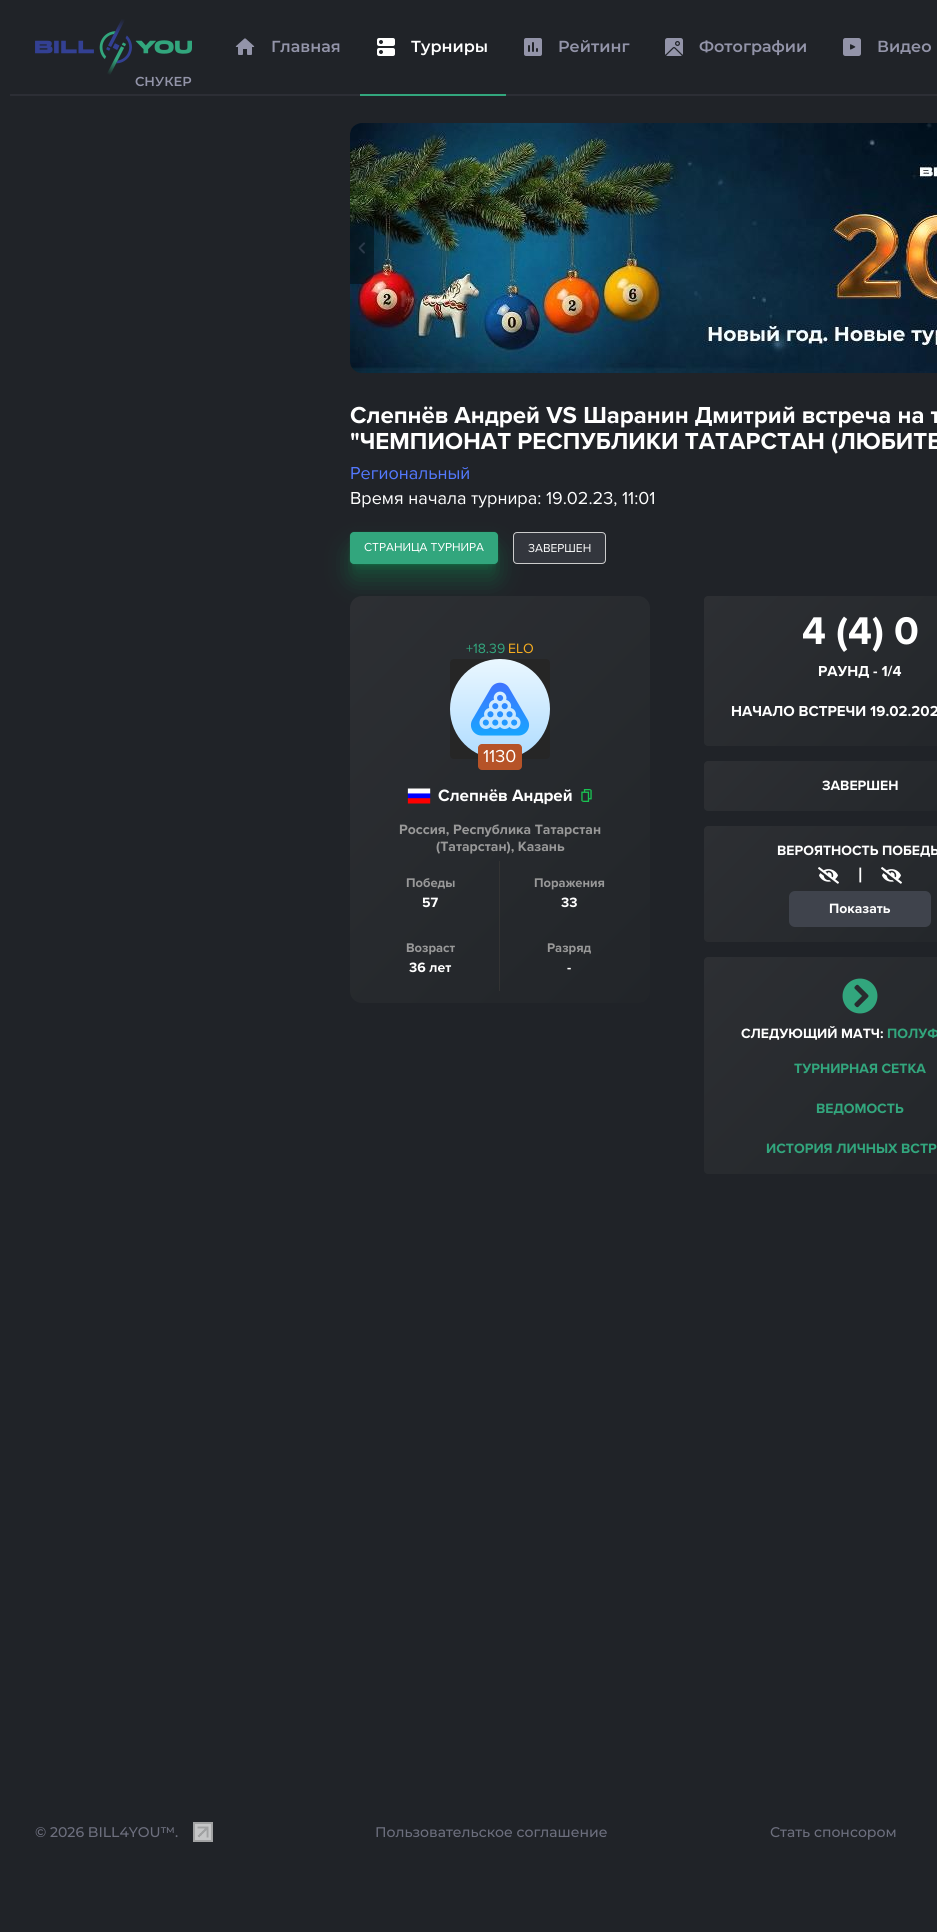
import math
import cairo

surface = cairo.ImageSurface(cairo.FORMAT_RGB24, 937, 1932)
ctx = cairo.Context(surface)
options = cairo.FontOptions()
options.set_hint_metrics(cairo.HINT_METRICS_OFF)
options.set_hint_style(cairo.HINT_STYLE_NONE)
ctx.set_font_options(options)
ctx.set_miter_limit(4)


def set_color(code):
    ctx.set_source_rgb(*(v / 255 for v in bytes.fromhex(code[-6:])))


def draw_text(x, y, s, family, size, color, bold=False, italic=False):
    ctx.select_font_face(family, cairo.FONT_SLANT_ITALIC if italic else cairo.FONT_SLANT_NORMAL, cairo.FONT_WEIGHT_BOLD if bold else cairo.FONT_WEIGHT_NORMAL)
    ctx.set_font_size(size)
    set_color(color)
    ctx.move_to(x, y)
    ctx.show_text(s)


def fill_rect(x, y, w, h, color):
    set_color(color)
    ctx.rectangle(x, y, w, h)
    ctx.fill()


def rounded_rect(x, y, w, h, r):
    ctx.new_sub_path()
    for i, (u, v) in enumerate([(x + w - r, y + h - r), (x + r, y + h - r), (x + r, y + r), (x + w - r, y + r)]):
        ctx.arc(u, v, r, i * math.pi / 2, (i + 1) * math.pi / 2)
    ctx.close_path()


def draw_shadow(x, y, w, h, r, blur, alpha):
    ctx.push_group_with_content(cairo.CONTENT_ALPHA)
    ctx.set_operator(cairo.OPERATOR_SOURCE)
    for i in range(15, -16, -2):
        e = blur * i / 6
        if min(w, h) + 2 * e > 0:
            ctx.set_source_rgba(0, 0, 0, alpha * math.erfc((i - 1) / 8.5) / 2)
            rounded_rect(x - e, y - e, w + 2 * e, h + 2 * e, max(0, min(r + e + blur * .6, min(w, h) / 2 + e)))
            ctx.fill()
    ctx.mask(ctx.pop_group())


def draw_image(path, x, y, w, h):
    ctx.save()
    ctx.set_source_surface(cairo.ImageSurface.create_from_png(path), x, y)
    ctx.rectangle(x, y, w, h)
    ctx.fill()
    ctx.restore()


set_color("#202328")
ctx.paint()
fill_rect(10, 94, 927, 2, "#2c2e35")
draw_image("assets/img1.png", 235, 38, 20, 17)
draw_text(271, 52, "Главная", "Montserrat SemiBold", 16, "#9394a9")
fill_rect(360, 94, 146, 2, "#32a67d")
draw_image("assets/img2.png", 377, 38, 18, 18)
draw_text(411, 52, "Турниры", "Montserrat SemiBold", 16, "#ffffff")
draw_image("assets/img3.png", 524, 38, 18, 18)
draw_text(558, 52, "Рейтинг", "Montserrat SemiBold", 16, "#9394a9")
draw_image("assets/img4.png", 665, 38, 18, 18)
draw_text(699, 52, "Фотографии", "Montserrat SemiBold", 16, "#9394a9")
draw_image("assets/img5.png", 843, 38, 18, 18)
draw_text(877, 52, "Видео", "Montserrat SemiBold", 16, "#9394a9")
draw_image("assets/img6.png", 35, 19, 157, 56)
draw_text(135, 86, "СНУКЕР", "Montserrat SemiBold", 13, "#9394a9")
draw_image("assets/img7.png", 350, 123, 587, 250)
ctx.set_source_rgba(0, 0, 0, 0.4)
ctx.new_path()
ctx.move_to(350, 212)
ctx.line_to(362, 212)
ctx.curve_to(368.5, 212, 374, 217.5, 374, 224)
ctx.line_to(374, 272)
ctx.curve_to(374, 278.5, 368.5, 284, 362, 284)
ctx.line_to(350, 284)
ctx.close_path()
ctx.fill()
draw_image("assets/img8.png", 358, 242, 7, 12)
draw_text(350, 423, "Слепнёв Андрей VS Шаранин Дмитрий встреча на т", "Proxima Nova", 24, "#ffffff", bold=True)
draw_text(350, 449, "\"ЧЕМПИОНАТ РЕСПУБЛИКИ ТАТАРСТАН (ЛЮБИТЕ", "Proxima Nova", 24, "#ffffff", bold=True)
draw_text(350, 479, "Региональный", "Proxima Nova", 18, "#5479ff")
draw_text(350, 504, "Время начала турнира: 19.02.23, 11:01", "Proxima Nova", 18, "#ffffff")
set_color("#00c864")
draw_shadow(350, 532, 148, 32, 4, 0.5, 0.24)
draw_shadow(351, 535, 146, 30, 3, 2, 0.12)
draw_shadow(350, 548, 148, 32, 4, 12, 0.24)
draw_shadow(354, 544, 140, 24, 0, 4, 0.12)
set_color("#32a67d")
rounded_rect(350, 532, 148, 32, 4)
ctx.fill()
draw_text(364, 551, "СТРАНИЦА ТУРНИРА", "Proxima Nova", 12, "#ffffff")
ctx.set_source_rgba(0.878, 0.878, 1, 0.1)
rounded_rect(513.5, 532.5, 92, 31, 3.5)
ctx.fill_preserve()
set_color("#cccccc")
ctx.set_line_width(1)
ctx.stroke()
draw_text(528, 552, "ЗАВЕРШЕН", "Proxima Nova", 12, "#ffffff")
gradient = cairo.LinearGradient(323, 623, 677, 976)
gradient.add_color_stop_rgba(0.01, 0.176, 0.184, 0.2, 1)
gradient.add_color_stop_rgba(0.52, 0.153, 0.165, 0.18, 1)
gradient.add_color_stop_rgba(1, 0.133, 0.145, 0.161, 1)
ctx.set_source(gradient)
rounded_rect(350, 596, 300, 407, 12)
ctx.fill()
draw_text(466, 653, "+18.39", "Proxima Nova", 14, "#32a67d")
draw_text(508, 653, "ELO", "Proxima Nova", 14, "#f6ad20")
set_color("#262626")
rounded_rect(450, 659, 100, 100, 4)
ctx.fill()
draw_image("assets/img9.png", 450, 659, 100, 95)
set_color("#b65328")
rounded_rect(478, 744, 44, 26, 4)
ctx.fill()
draw_text(483, 762, "1130", "Proxima Nova", 18, "#ffffff")
draw_image("assets/img10.png", 407, 788, 24, 16)
draw_text(438, 801, "Слепнёв Андрей", "Proxima Nova", 17, "#ffffff", bold=True)
draw_image("assets/img11.png", 581, 789, 11, 13)
draw_text(399, 834, "Россия, Республика Татарстан", "Proxima Nova", 14, "#999999", bold=True)
draw_text(436, 851, "(Татарстан), Казань", "Proxima Nova", 14, "#999999", bold=True)
fill_rect(499, 861, 1, 130, "#333333")
draw_text(406, 887, "Победы", "Proxima Nova", 13, "#999999", bold=True)
draw_text(422, 907, "57", "Proxima Nova", 14, "#ffffff", bold=True)
draw_text(534, 887, "Поражения", "Proxima Nova", 13, "#999999", bold=True)
draw_text(561, 907, "33", "Proxima Nova", 14, "#ffffff", bold=True)
draw_text(406, 952, "Возраст", "Proxima Nova", 13, "#999999", bold=True)
draw_text(409, 972, "36 лет", "Proxima Nova", 14, "#ffffff", bold=True)
draw_text(547, 952, "Разряд", "Proxima Nova", 13, "#999999", bold=True)
draw_text(567, 972, "-", "Proxima Nova", 14, "#ffffff", bold=True)
gradient = cairo.LinearGradient(745, 556, 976, 787)
gradient.add_color_stop_rgba(0.01, 0.176, 0.184, 0.2, 1)
gradient.add_color_stop_rgba(0.52, 0.153, 0.165, 0.18, 1)
gradient.add_color_stop_rgba(1, 0.133, 0.145, 0.161, 1)
ctx.set_source(gradient)
rounded_rect(704, 596, 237, 150, 4)
ctx.fill()
draw_text(802, 644, "4 (4) 0", "Proxima Nova", 40, "#ffffff", bold=True)
draw_text(818, 676, "РАУНД - 1/4", "Proxima Nova", 15, "#ffffff", bold=True)
draw_text(731, 716, "НАЧАЛО ВСТРЕЧИ 19.02.202", "Proxima Nova", 15, "#ffffff", bold=True)
gradient = cairo.LinearGradient(770, 696, 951, 877)
gradient.add_color_stop_rgba(0.01, 0.176, 0.184, 0.2, 1)
gradient.add_color_stop_rgba(0.52, 0.153, 0.165, 0.18, 1)
gradient.add_color_stop_rgba(1, 0.133, 0.145, 0.161, 1)
ctx.set_source(gradient)
rounded_rect(704, 761, 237, 50, 4)
ctx.fill()
draw_text(822, 790, "ЗАВЕРШЕН", "Proxima Nova", 14, "#ffffff", bold=True)
gradient = cairo.LinearGradient(753, 777, 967, 991)
gradient.add_color_stop_rgba(0.01, 0.176, 0.184, 0.2, 1)
gradient.add_color_stop_rgba(0.52, 0.153, 0.165, 0.18, 1)
gradient.add_color_stop_rgba(1, 0.133, 0.145, 0.161, 1)
ctx.set_source(gradient)
rounded_rect(704, 826, 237, 116, 4)
ctx.fill()
draw_text(777, 855, "ВЕРОЯТНОСТЬ ПОБЕДЫ", "Proxima Nova", 14, "#ffffff", bold=True)
draw_image("assets/img12.png", 818, 867, 21, 17)
draw_text(858, 882, "|", "Proxima Nova", 21, "#ffffff", bold=True)
draw_image("assets/img13.png", 881, 867, 21, 17)
set_color("#3f434c")
rounded_rect(789, 891, 142, 36, 6)
ctx.fill()
draw_text(829, 913, "Показать", "Proxima Nova", 14, "#ffffff", bold=True)
gradient = cairo.LinearGradient(728, 933, 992, 1198)
gradient.add_color_stop_rgba(0.01, 0.176, 0.184, 0.2, 1)
gradient.add_color_stop_rgba(0.52, 0.153, 0.165, 0.18, 1)
gradient.add_color_stop_rgba(1, 0.133, 0.145, 0.161, 1)
ctx.set_source(gradient)
rounded_rect(704, 957, 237, 217, 4)
ctx.fill()
draw_image("assets/img14.png", 842, 978, 36, 36)
draw_text(741, 1038, "СЛЕДУЮЩИЙ МАТЧ:", "Proxima Nova", 14, "#ffffff", bold=True)
draw_text(887, 1038, "ПОЛУФ", "Proxima Nova", 14, "#32a67d", bold=True)
draw_text(794, 1073, "ТУРНИРНАЯ СЕТКА", "Proxima Nova", 14, "#32a67d", bold=True)
draw_text(816, 1113, "ВЕДОМОСТЬ", "Proxima Nova", 14, "#32a67d", bold=True)
draw_text(766, 1153, "ИСТОРИЯ ЛИЧНЫХ ВСТР", "Proxima Nova", 14, "#32a67d", bold=True)
draw_text(35, 1837, "© 2026 BILL4YOU™.", "Montserrat Medium", 14, "#6d6f7e")
draw_image("assets/img15.png", 193, 1822, 20, 20)
draw_text(375, 1837, "Пользовательское соглашение", "Montserrat Medium", 14, "#6d6f7e")
draw_text(770, 1837, "Стать спонсором", "Montserrat Medium", 14, "#6d6f7e")
surface.write_to_png("output.png")
